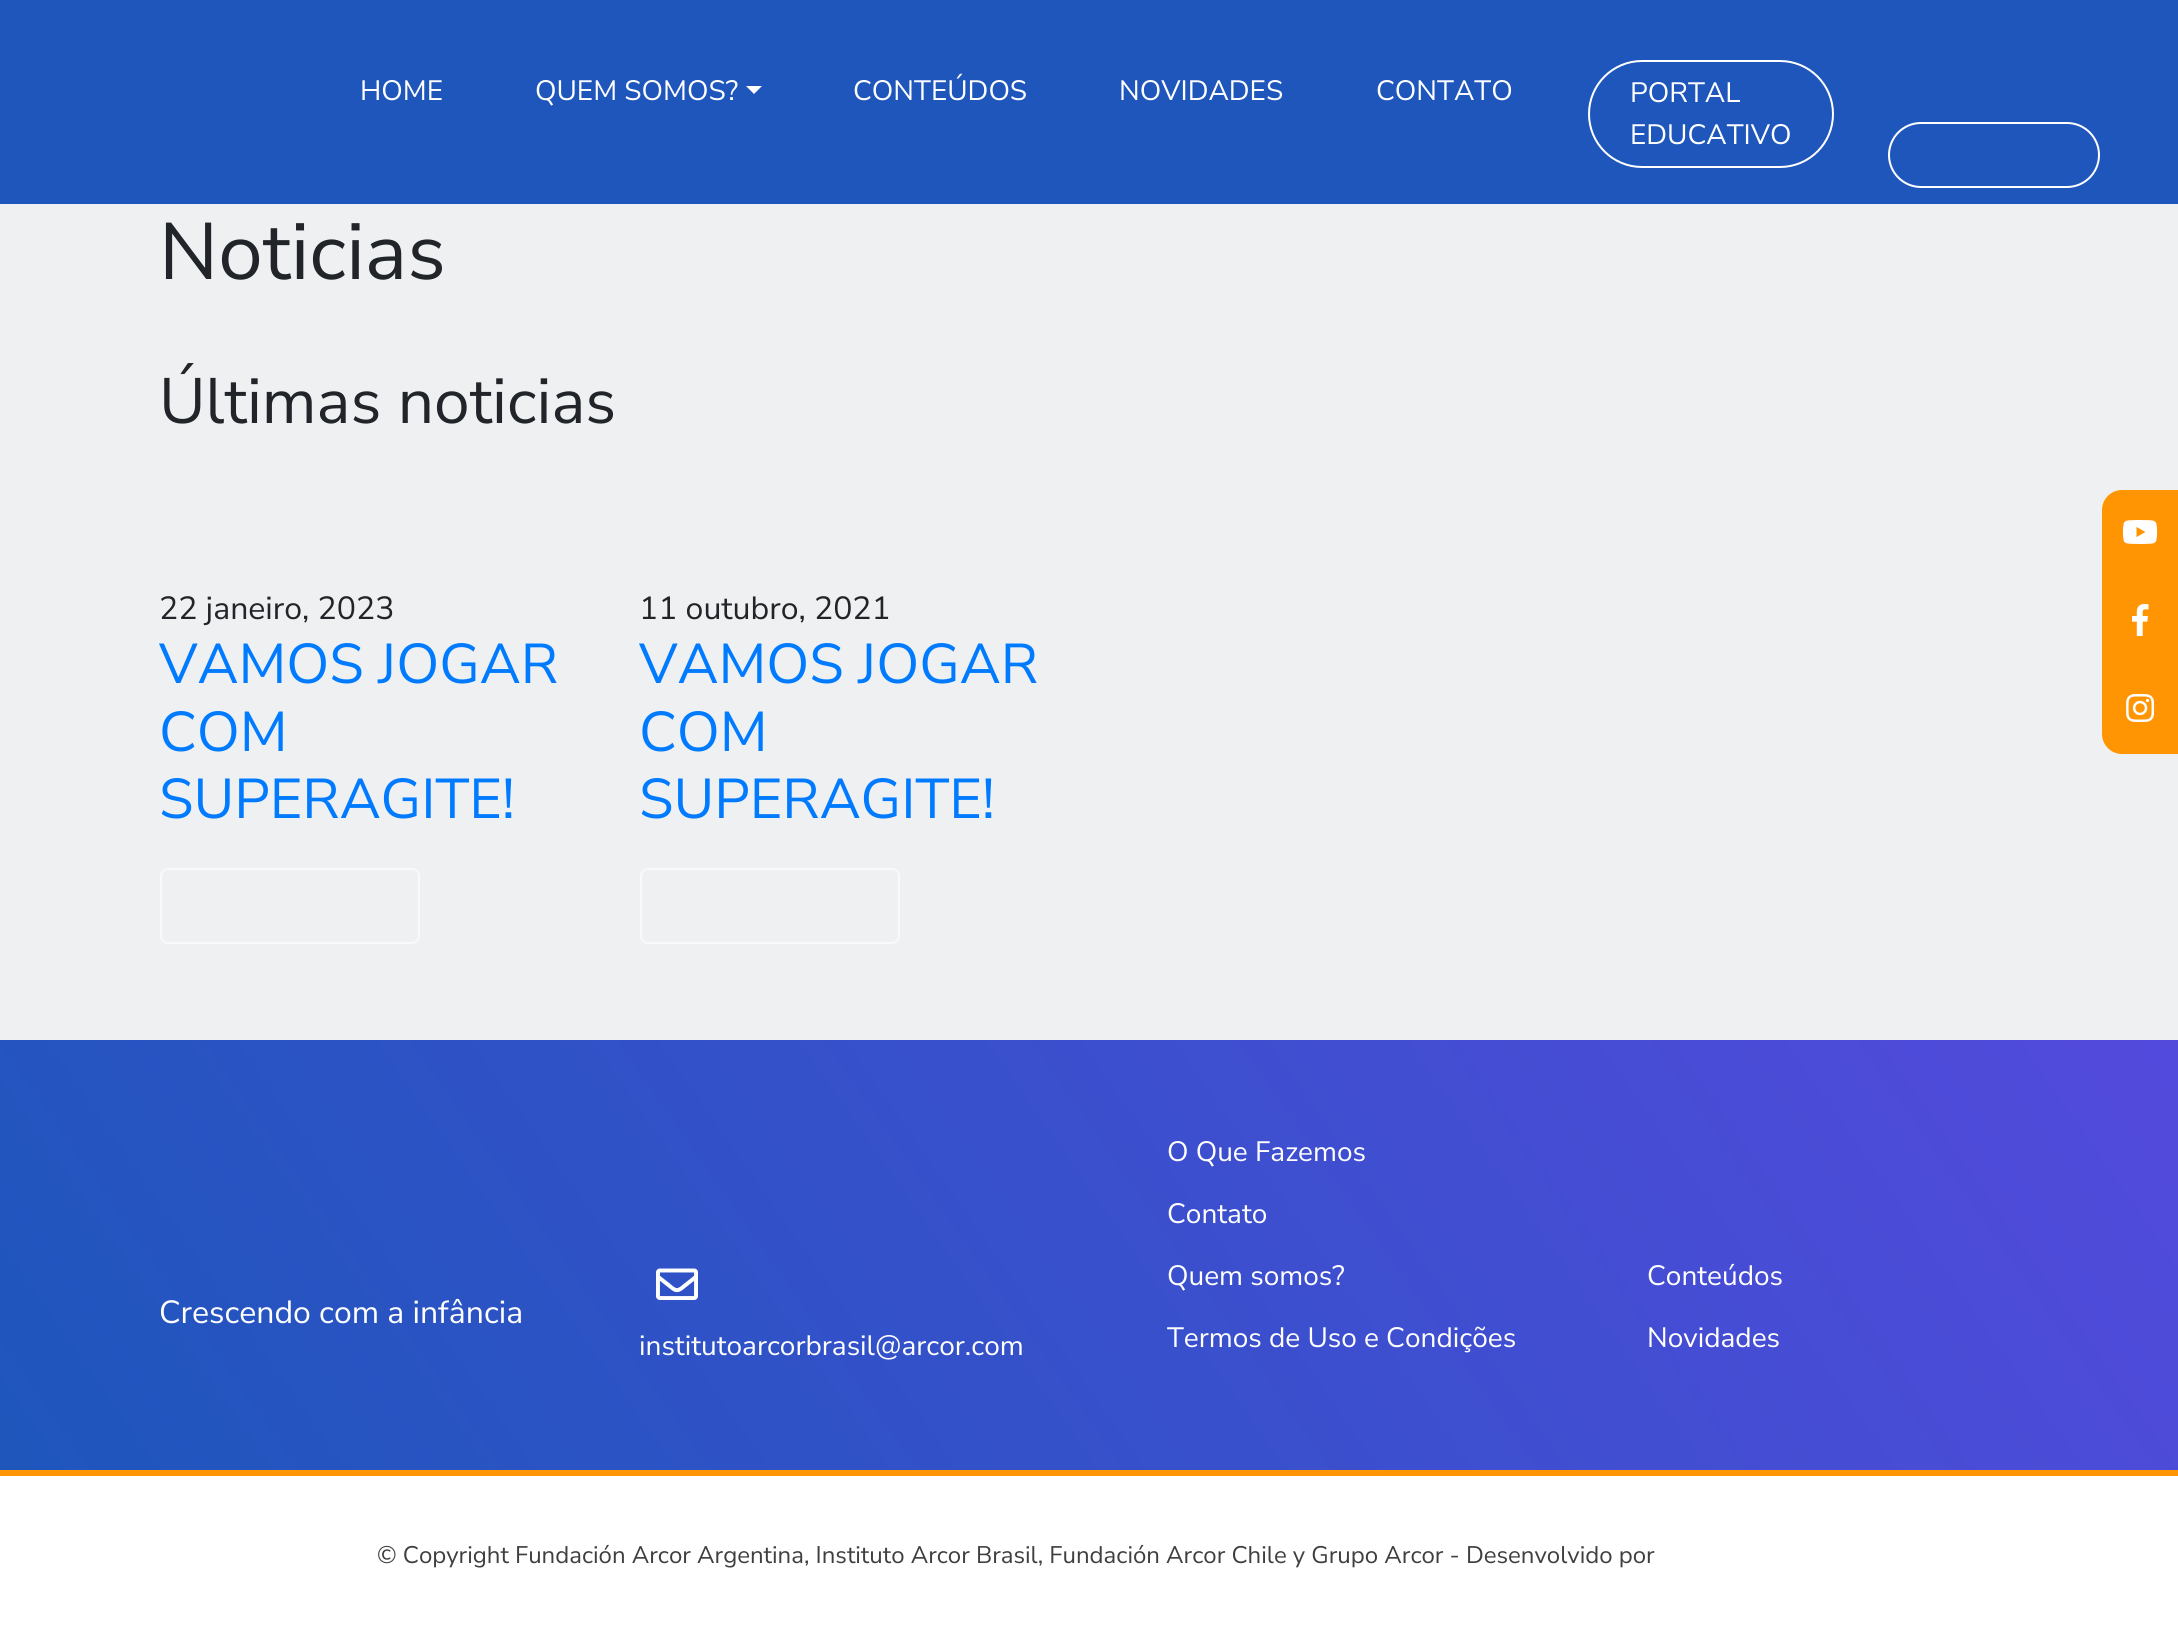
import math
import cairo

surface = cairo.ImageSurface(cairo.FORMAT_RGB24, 2178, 1631)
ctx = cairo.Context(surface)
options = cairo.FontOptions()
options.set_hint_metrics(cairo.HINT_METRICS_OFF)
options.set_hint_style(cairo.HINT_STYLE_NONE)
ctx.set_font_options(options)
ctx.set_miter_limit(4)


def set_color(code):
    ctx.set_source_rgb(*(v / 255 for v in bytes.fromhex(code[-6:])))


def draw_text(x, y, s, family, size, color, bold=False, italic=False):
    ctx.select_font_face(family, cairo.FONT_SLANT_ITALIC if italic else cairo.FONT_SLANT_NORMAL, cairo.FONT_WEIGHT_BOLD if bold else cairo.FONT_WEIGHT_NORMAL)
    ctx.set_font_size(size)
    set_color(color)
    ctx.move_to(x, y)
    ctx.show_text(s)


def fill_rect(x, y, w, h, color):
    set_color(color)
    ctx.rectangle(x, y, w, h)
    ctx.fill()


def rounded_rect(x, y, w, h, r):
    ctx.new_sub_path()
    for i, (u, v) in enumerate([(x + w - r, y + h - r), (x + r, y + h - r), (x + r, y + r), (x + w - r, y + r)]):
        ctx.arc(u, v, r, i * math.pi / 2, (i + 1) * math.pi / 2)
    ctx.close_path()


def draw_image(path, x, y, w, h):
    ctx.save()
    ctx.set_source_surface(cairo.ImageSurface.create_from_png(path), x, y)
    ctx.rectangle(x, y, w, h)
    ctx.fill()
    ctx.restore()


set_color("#eff0f1")
ctx.paint()
fill_rect(0, 0, 2178, 204, "#1e56bc")
draw_text(360, 100, "HOME", "Nunito Sans", 28, "#ffffff")
draw_text(535, 100, "QUEM SOMOS?", "Nunito Sans", 28, "#ffffff")
ctx.new_path()
ctx.move_to(746, 86)
ctx.line_to(762, 86)
ctx.line_to(754, 94)
ctx.close_path()
ctx.fill()
draw_text(853, 100, "CONTEÚDOS", "Nunito Sans", 28, "#ffffff")
draw_text(1119, 100, "NOVIDADES", "Nunito Sans", 28, "#ffffff")
draw_text(1376, 100, "CONTATO", "Nunito Sans", 28, "#ffffff")
rounded_rect(1589, 61, 244, 106, 53)
ctx.stroke()
draw_text(1630, 102, "PORTAL", "Nunito Sans", 28, "#ffffff")
draw_text(1630, 144, "EDUCATIVO", "Nunito Sans", 28, "#ffffff")
rounded_rect(1889, 123, 210, 64, 32)
ctx.stroke()
draw_text(159, 279, "Noticias", "Nunito Sans", 80, "#212529")
draw_text(159, 423, "Últimas noticias", "Nunito Sans", 64, "#212529")
draw_text(159, 619, "22 janeiro, 2023", "Nunito Sans", 32, "#212529")
draw_text(159, 683, "VAMOS JOGAR", "Nunito Sans", 56, "#007bff")
draw_text(159, 751, "COM", "Nunito Sans", 56, "#007bff")
draw_text(159, 818, "SUPERAGITE!", "Nunito Sans", 56, "#007bff")
rounded_rect(161, 869, 258, 74, 7)
set_color("#f8f9fa")
ctx.stroke()
draw_text(639, 619, "11 outubro, 2021", "Nunito Sans", 32, "#212529")
draw_text(639, 683, "VAMOS JOGAR", "Nunito Sans", 56, "#007bff")
draw_text(639, 751, "COM", "Nunito Sans", 56, "#007bff")
draw_text(639, 818, "SUPERAGITE!", "Nunito Sans", 56, "#007bff")
rounded_rect(641, 869, 258, 74, 7)
set_color("#f8f9fa")
ctx.stroke()
set_color("#ff9502")
ctx.new_path()
ctx.move_to(2122, 490)
ctx.line_to(2178, 490)
ctx.line_to(2178, 754)
ctx.line_to(2122, 754)
ctx.curve_to(2111, 754, 2102, 745, 2102, 734)
ctx.line_to(2102, 510)
ctx.curve_to(2102, 499, 2111, 490, 2122, 490)
ctx.close_path()
ctx.fill()
draw_image("assets/img1.png", 2122, 520, 36, 24)
draw_image("assets/img2.png", 2132, 604, 17, 32)
draw_image("assets/img3.png", 2126, 694, 29, 28)
gradient = cairo.LinearGradient(257, 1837, 1921, 673)
gradient.add_color_stop_rgba(0, 0.118, 0.337, 0.737, 1)
gradient.add_color_stop_rgba(1, 0.325, 0.29, 0.863, 1)
ctx.set_source(gradient)
ctx.rectangle(0, 1040, 2178, 430)
ctx.fill()
draw_text(159, 1323, "Crescendo com a infância", "Nunito Sans", 32, "#ffffff")
draw_text(1167, 1161, "O Que Fazemos", "Nunito Sans", 28, "#ffffff")
draw_text(1167, 1223, "Contato", "Nunito Sans", 28, "#ffffff")
draw_text(1167, 1285, "Quem somos?", "Nunito Sans", 28, "#ffffff")
draw_text(1167, 1347, "Termos de Uso e Condições", "Nunito Sans", 28, "#ffffff")
draw_text(1647, 1285, "Conteúdos", "Nunito Sans", 28, "#ffffff")
draw_text(1647, 1347, "Novidades", "Nunito Sans", 28, "#ffffff")
draw_image("assets/img4.png", 656, 1268, 42, 32)
draw_text(639, 1355, "institutoarcorbrasil@arcor.com", "Nunito Sans", 28, "#ffffff")
fill_rect(0, 1476, 2178, 155, "#ffffff")
fill_rect(0, 1470, 2178, 6, "#ff9502")
draw_text(377, 1563, "© Copyright Fundación Arcor Argentina, Instituto Arcor Brasil, Fundación Arcor Chile y Grupo Arcor - Desenvolvido por", "Nunito Sans", 24, "#3f3f3f")
surface.write_to_png("output.png")
